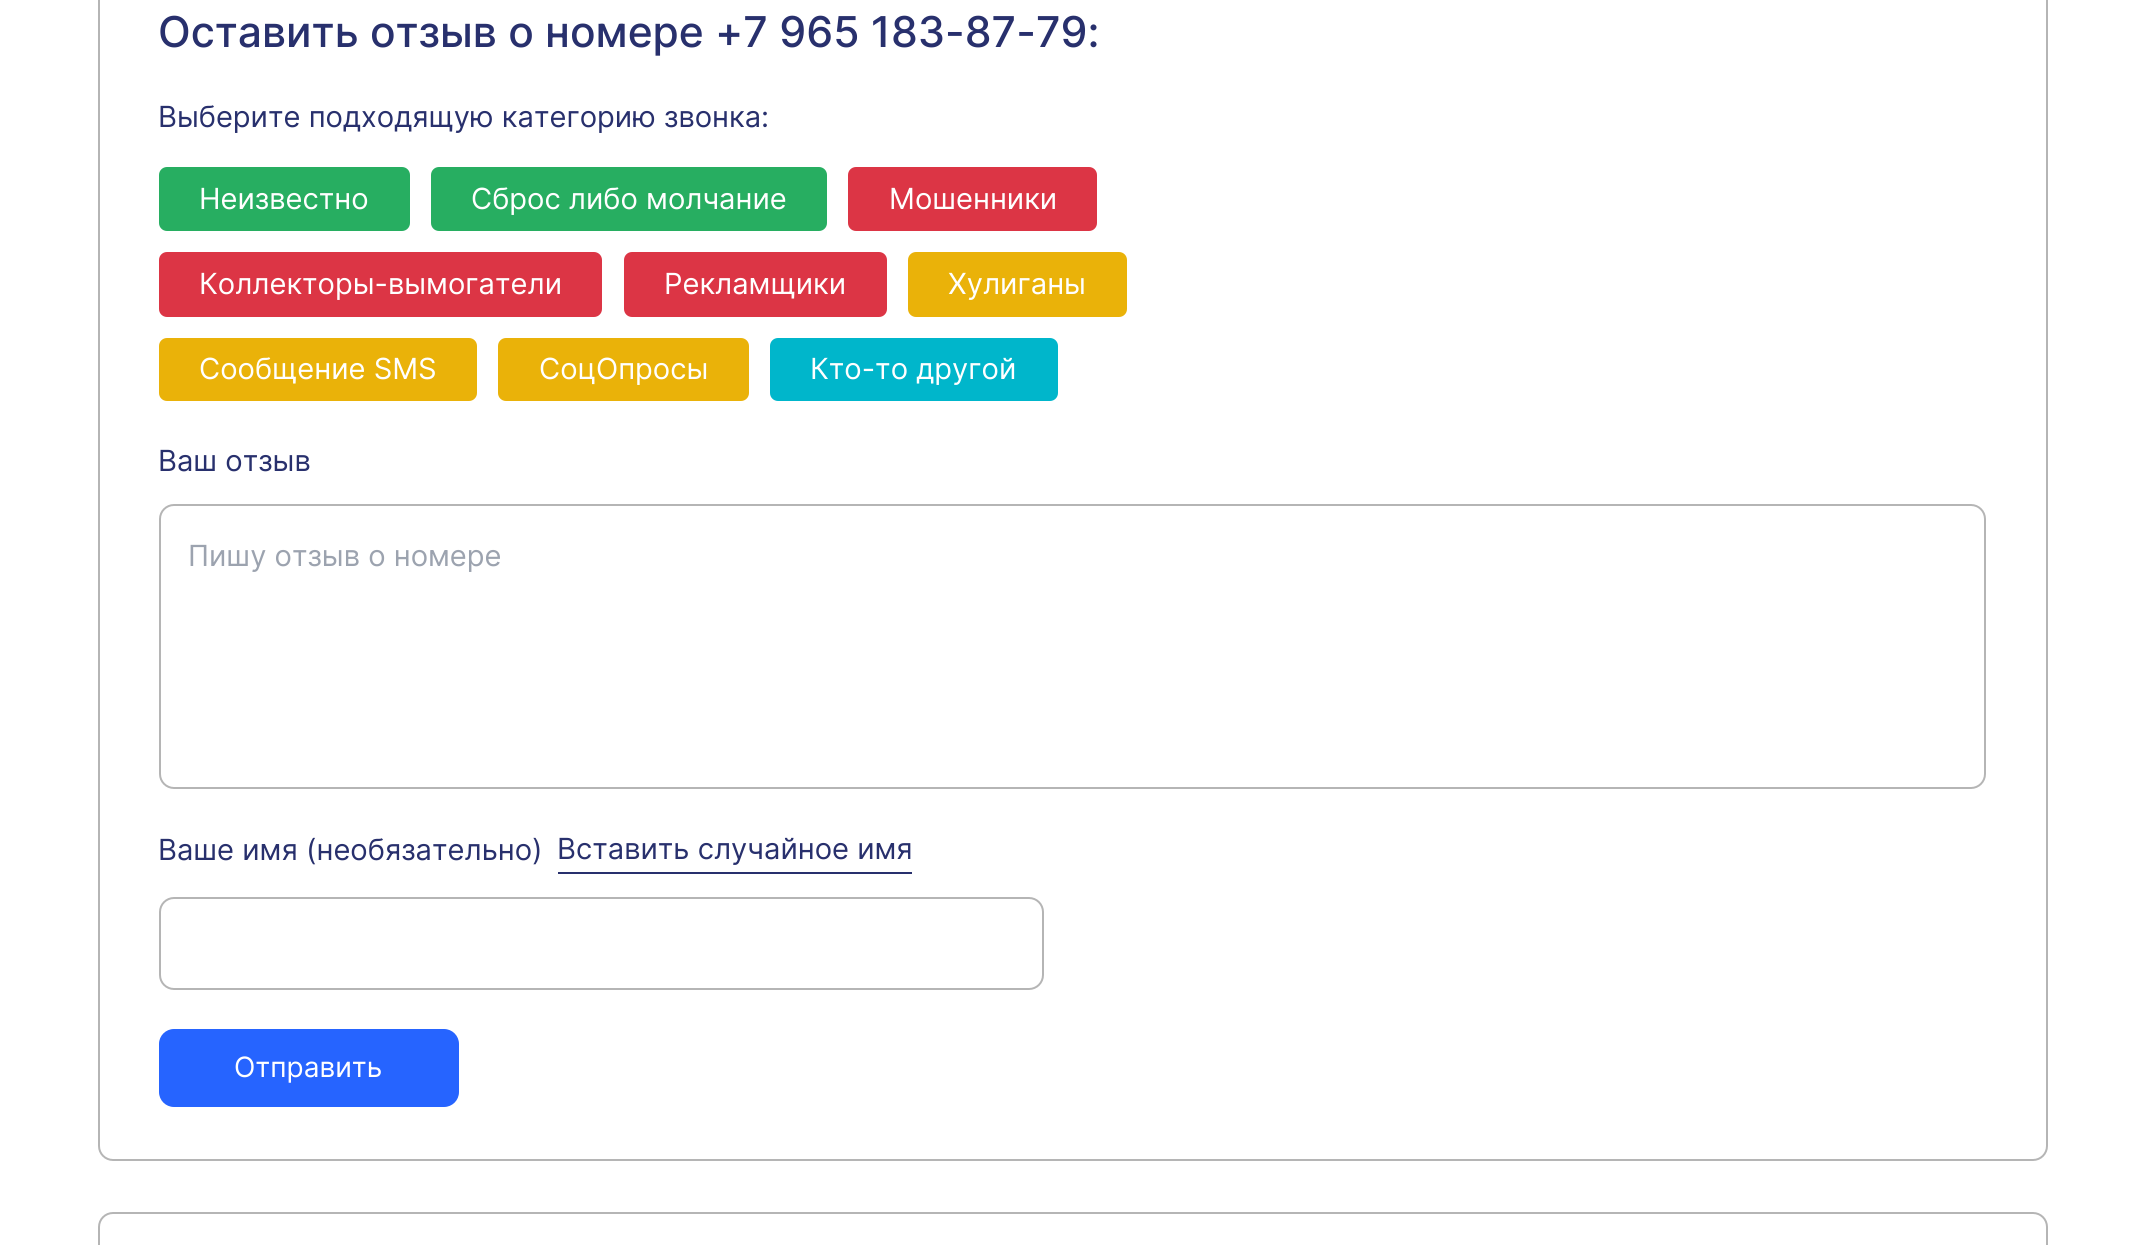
import math
import cairo

surface = cairo.ImageSurface(cairo.FORMAT_RGB24, 2143, 1245)
ctx = cairo.Context(surface)
options = cairo.FontOptions()
options.set_hint_metrics(cairo.HINT_METRICS_OFF)
options.set_hint_style(cairo.HINT_STYLE_NONE)
ctx.set_font_options(options)
ctx.set_miter_limit(4)


def set_color(code):
    ctx.set_source_rgb(*(v / 255 for v in bytes.fromhex(code[-6:])))


def draw_text(x, y, s, family, size, color, bold=False, italic=False):
    ctx.select_font_face(family, cairo.FONT_SLANT_ITALIC if italic else cairo.FONT_SLANT_NORMAL, cairo.FONT_WEIGHT_BOLD if bold else cairo.FONT_WEIGHT_NORMAL)
    ctx.set_font_size(size)
    set_color(color)
    ctx.move_to(x, y)
    ctx.show_text(s)


def fill_rect(x, y, w, h, color):
    set_color(color)
    ctx.rectangle(x, y, w, h)
    ctx.fill()


def rounded_rect(x, y, w, h, r):
    ctx.new_sub_path()
    for i, (u, v) in enumerate([(x + w - r, y + h - r), (x + r, y + h - r), (x + r, y + r), (x + w - r, y + r)]):
        ctx.arc(u, v, r, i * math.pi / 2, (i + 1) * math.pi / 2)
    ctx.close_path()


set_color("#ffffff")
ctx.paint()
rounded_rect(99, -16, 1948, 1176, 14)
set_color("#b5b5b5")
ctx.stroke()
draw_text(158, 47, "Оставить отзыв о номере", "Inter Medium", 42.5, "#28306d")
draw_text(715, 47, "+7 965 183-87-79:", "Inter Medium", 42.5, "#28306d")
draw_text(158, 127, "Выберите подходящую категорию звонка:", "Inter", 29.1, "#28306d")
set_color("#27ae61")
rounded_rect(159, 167, 251, 64, 8)
ctx.fill()
draw_text(199, 209, "Неизвестно", "Inter", 29.1, "#ffffff")
set_color("#27ae61")
rounded_rect(431, 167, 396, 64, 8)
ctx.fill()
draw_text(471, 209, "Сброс либо молчание", "Inter", 29.1, "#ffffff")
set_color("#dc3545")
rounded_rect(848, 167, 249, 64, 8)
ctx.fill()
draw_text(889, 209, "Мошенники", "Inter", 29.1, "#ffffff")
set_color("#dc3545")
rounded_rect(159, 252, 443, 65, 8)
ctx.fill()
draw_text(199, 294, "Коллекторы-вымогатели", "Inter", 29.1, "#ffffff")
set_color("#dc3545")
rounded_rect(624, 252, 263, 65, 8)
ctx.fill()
draw_text(664, 294, "Рекламщики", "Inter", 29.1, "#ffffff")
set_color("#eab209")
rounded_rect(908, 252, 219, 65, 8)
ctx.fill()
draw_text(948, 294, "Хулиганы", "Inter", 29.1, "#ffffff")
set_color("#eab209")
rounded_rect(159, 338, 318, 63, 8)
ctx.fill()
draw_text(199, 379, "Сообщение SMS", "Inter", 29.1, "#ffffff")
set_color("#eab209")
rounded_rect(498, 338, 251, 63, 8)
ctx.fill()
draw_text(539, 379, "СоцОпросы", "Inter", 29.1, "#ffffff")
set_color("#00b6cb")
rounded_rect(770, 338, 288, 63, 8)
ctx.fill()
draw_text(810, 379, "Кто-то другой", "Inter", 29.1, "#ffffff")
draw_text(158, 471, "Ваш отзыв", "Inter", 29.1, "#28306d")
rounded_rect(160, 505, 1825, 283, 14)
set_color("#b5b5b5")
ctx.stroke()
draw_text(188, 566, "Пишу отзыв о номере", "Inter", 29.1, "#9ca3af")
draw_text(158, 860, "Ваше имя (необязательно)", "Inter", 29.1, "#28306d")
fill_rect(558, 872, 354, 2, "#28306d")
draw_text(557, 859, "Вставить случайное имя", "Inter", 29.1, "#28306d")
rounded_rect(160, 898, 883, 91, 14)
set_color("#b5b5b5")
ctx.stroke()
set_color("#2664ff")
rounded_rect(159, 1029, 300, 78, 15)
ctx.fill()
draw_text(234, 1077, "Отправить", "Inter", 28, "#ffffff")
rounded_rect(99, 1213, 1948, 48, 14)
set_color("#b5b5b5")
ctx.stroke()
surface.write_to_png("output.png")
